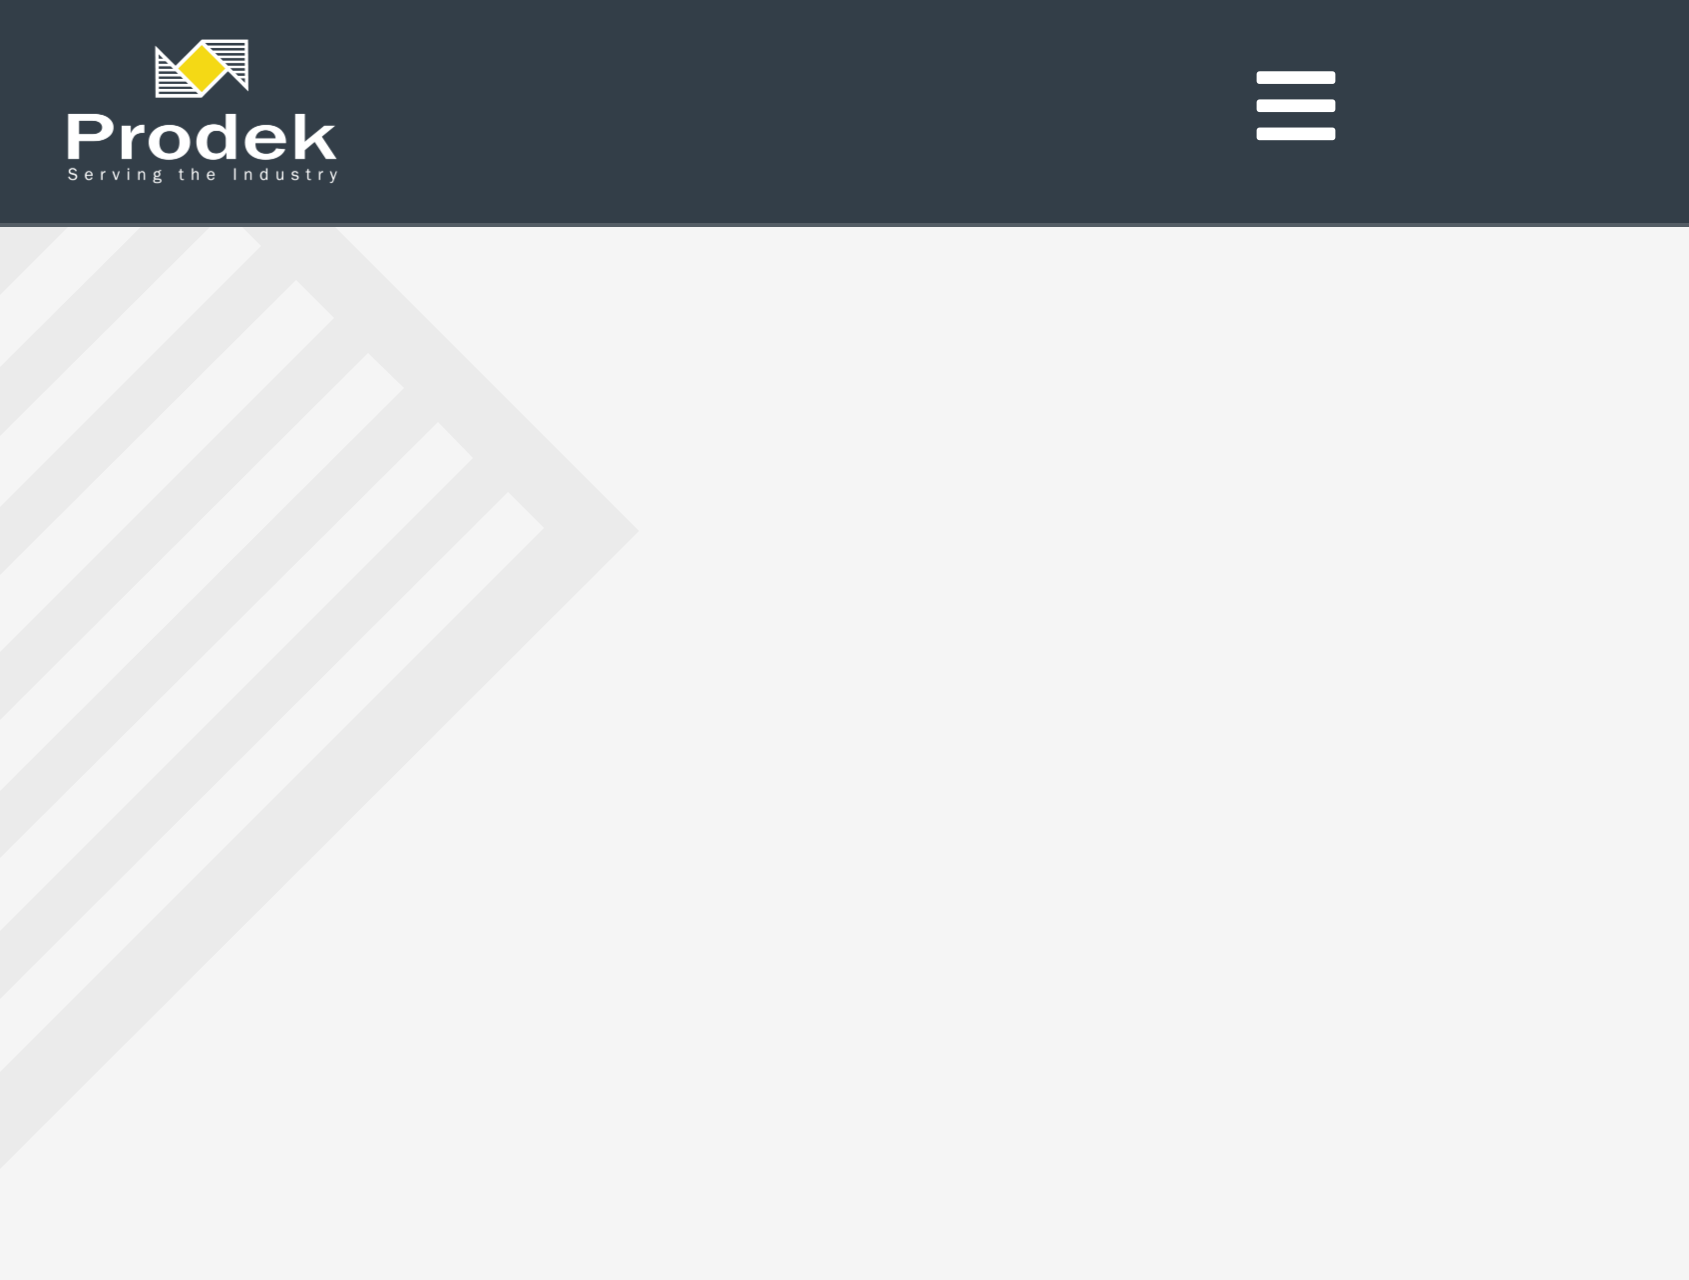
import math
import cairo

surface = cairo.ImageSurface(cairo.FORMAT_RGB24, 1689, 1280)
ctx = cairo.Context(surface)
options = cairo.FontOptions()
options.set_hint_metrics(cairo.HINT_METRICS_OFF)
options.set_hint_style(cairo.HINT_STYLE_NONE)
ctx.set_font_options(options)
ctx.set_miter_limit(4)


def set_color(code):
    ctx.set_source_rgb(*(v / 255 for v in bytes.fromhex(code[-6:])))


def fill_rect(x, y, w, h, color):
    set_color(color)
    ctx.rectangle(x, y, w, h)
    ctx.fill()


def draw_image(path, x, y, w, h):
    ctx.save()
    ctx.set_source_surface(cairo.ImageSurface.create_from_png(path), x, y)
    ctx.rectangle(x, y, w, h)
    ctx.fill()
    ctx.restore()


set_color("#f5f5f5")
ctx.paint()
fill_rect(0, 0, 1689, 223, "#333e48")
fill_rect(0, 223, 1689, 4, "#545d65")
draw_image("assets/img1.png", 67, 39, 271, 145)
draw_image("assets/img2.png", 1256, 71, 80, 70)
ctx.save()
ctx.rectangle(0, 227, 752, 977)
ctx.clip()
set_color("#ebebeb")
ctx.new_path()
ctx.move_to(-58, 1227)
ctx.line_to(3, 1166)
ctx.line_to(639, 531)
ctx.line_to(-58, -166)
ctx.close_path()
ctx.move_to(51, 35)
ctx.line_to(0, 86)
ctx.line_to(-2, -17)
ctx.close_path()
ctx.move_to(121, 106)
ctx.line_to(0, 226)
ctx.line_to(0, 154)
ctx.line_to(85, 70)
ctx.close_path()
ctx.move_to(192, 176)
ctx.line_to(0, 367)
ctx.line_to(0, 295)
ctx.line_to(155, 140)
ctx.close_path()
ctx.move_to(261, 246)
ctx.line_to(0, 507)
ctx.line_to(0, 436)
ctx.line_to(226, 211)
ctx.close_path()
ctx.move_to(334, 318)
ctx.line_to(0, 652)
ctx.line_to(0, 575)
ctx.line_to(296, 280)
ctx.close_path()
ctx.move_to(404, 388)
ctx.line_to(0, 791)
ctx.line_to(0, 720)
ctx.line_to(368, 353)
ctx.close_path()
ctx.move_to(473, 458)
ctx.line_to(0, 931)
ctx.line_to(0, 858)
ctx.line_to(438, 422)
ctx.close_path()
ctx.move_to(0, 1072)
ctx.line_to(0, 999)
ctx.line_to(508, 492)
ctx.line_to(544, 528)
ctx.close_path()
ctx.fill()
ctx.restore()
surface.write_to_png("output.png")
